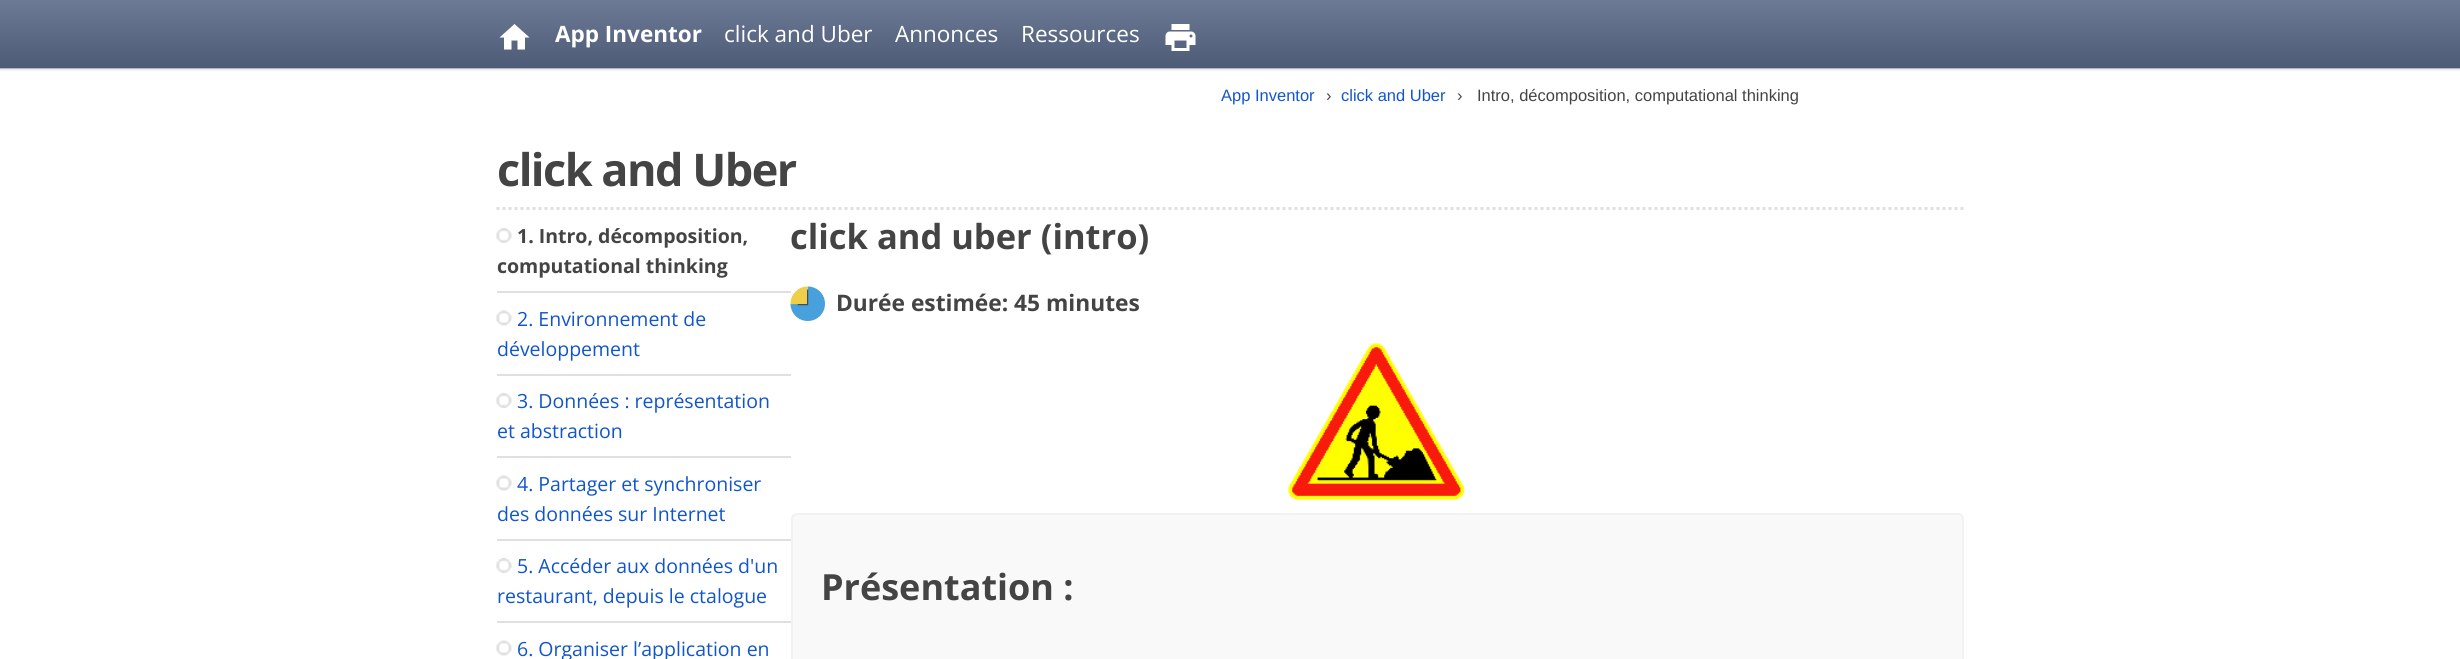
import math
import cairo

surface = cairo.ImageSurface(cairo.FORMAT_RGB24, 2460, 659)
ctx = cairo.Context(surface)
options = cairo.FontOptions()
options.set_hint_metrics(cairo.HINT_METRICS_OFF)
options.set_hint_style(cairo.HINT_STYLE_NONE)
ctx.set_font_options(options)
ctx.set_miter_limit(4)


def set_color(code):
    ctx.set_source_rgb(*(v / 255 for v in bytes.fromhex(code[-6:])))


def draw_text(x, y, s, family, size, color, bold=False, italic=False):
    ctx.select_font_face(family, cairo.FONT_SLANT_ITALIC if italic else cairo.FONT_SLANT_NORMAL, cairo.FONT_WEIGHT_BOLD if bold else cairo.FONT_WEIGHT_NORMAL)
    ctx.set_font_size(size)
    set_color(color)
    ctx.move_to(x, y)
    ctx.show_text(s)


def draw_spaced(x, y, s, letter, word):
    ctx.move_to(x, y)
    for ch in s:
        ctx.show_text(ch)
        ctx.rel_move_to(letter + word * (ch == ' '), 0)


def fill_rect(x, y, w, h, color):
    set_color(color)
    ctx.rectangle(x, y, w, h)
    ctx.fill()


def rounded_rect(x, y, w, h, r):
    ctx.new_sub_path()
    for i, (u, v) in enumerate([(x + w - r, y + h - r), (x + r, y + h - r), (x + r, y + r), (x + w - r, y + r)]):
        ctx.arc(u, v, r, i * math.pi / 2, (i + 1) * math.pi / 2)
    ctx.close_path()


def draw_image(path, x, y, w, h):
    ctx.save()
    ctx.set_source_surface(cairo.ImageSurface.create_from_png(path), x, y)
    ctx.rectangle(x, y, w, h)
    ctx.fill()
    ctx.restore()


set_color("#ffffff")
ctx.paint()
gradient = cairo.LinearGradient(1230, 0, 1230, 75)
gradient.add_color_stop_rgba(0, 0.424, 0.478, 0.584, 1)
gradient.add_color_stop_rgba(0.9, 0.302, 0.357, 0.463, 1)
gradient.add_color_stop_rgba(0.92, 0.898, 0.898, 0.898, 1)
gradient.add_color_stop_rgba(0.94, 0.969, 0.969, 0.969, 1)
gradient.add_color_stop_rgba(0.96, 1, 1, 1, 1)
ctx.set_source(gradient)
ctx.rectangle(0, 0, 2460, 72)
ctx.fill()
set_color("#ffffff")
ctx.new_path()
ctx.move_to(511.5, 49.5)
ctx.line_to(511.5, 40.5)
ctx.line_to(517.5, 40.5)
ctx.line_to(517.5, 49.5)
ctx.line_to(525, 49.5)
ctx.line_to(525, 37.5)
ctx.line_to(529.5, 37.5)
ctx.line_to(514.5, 24)
ctx.line_to(499.5, 37.5)
ctx.line_to(504, 37.5)
ctx.line_to(504, 49.5)
ctx.close_path()
ctx.fill()
draw_text(555, 42, "App Inventor", "Open Sans", 22.5, "#ffffff", bold=True)
draw_text(724, 42, "click and Uber", "Open Sans", 22.5, "#ffffff")
draw_text(895, 42, "Annonces", "Open Sans", 22.5, "#ffffff")
draw_text(1021, 42, "Ressources", "Open Sans", 22.5, "#ffffff")
draw_image("assets/img1.png", 1165, 24, 31, 27)
draw_text(1221, 101, "App Inventor", "Liberation Sans", 16.5, "#1155cc")
draw_text(1326, 101, "›", "Liberation Sans", 16.5, "#444444")
draw_text(1341, 101, "click and Uber", "Liberation Sans", 16.5, "#1155cc")
draw_text(1457, 101, "›", "Liberation Sans", 16.5, "#444444")
draw_text(1477, 101, "Intro, décomposition, computational thinking", "Liberation Sans", 16.5, "#444444")
ctx.new_path()
ctx.move_to(496.5, 208.5)
ctx.line_to(1963.5, 208.5)
set_color("#e0e0e0")
ctx.set_line_width(3)
ctx.set_dash([3, 3])
ctx.stroke()
ctx.select_font_face("Open Sans", cairo.FONT_SLANT_NORMAL, cairo.FONT_WEIGHT_BOLD)
ctx.set_font_size(45)
set_color("#444444")
draw_spaced(497, 186, "click and Uber", -1.5, 0)
fill_rect(497, 291, 294, 2, "#e0e0e0")
draw_image("assets/img2.png", 496, 228, 16, 15)
draw_text(517, 243, "1. Intro, décomposition,", "Open Sans", 19.5, "#444444", bold=True)
draw_text(497, 273, "computational thinking", "Open Sans", 19.5, "#444444", bold=True)
fill_rect(497, 374, 294, 2, "#e0e0e0")
draw_image("assets/img3.png", 496, 310, 16, 16)
draw_text(517, 326, "2. Environnement de", "Open Sans", 19.5, "#1155cc")
draw_text(497, 356, "développement", "Open Sans", 19.5, "#1155cc")
fill_rect(497, 456, 294, 2, "#e0e0e0")
draw_image("assets/img2.png", 496, 393, 16, 15)
draw_text(517, 408, "3. Données : représentation", "Open Sans", 19.5, "#1155cc")
draw_text(497, 438, "et abstraction", "Open Sans", 19.5, "#1155cc")
fill_rect(497, 539, 294, 2, "#e0e0e0")
draw_image("assets/img3.png", 496, 475, 16, 16)
draw_text(517, 491, "4. Partager et synchroniser", "Open Sans", 19.5, "#1155cc")
draw_text(497, 521, "des données sur Internet", "Open Sans", 19.5, "#1155cc")
fill_rect(497, 621, 294, 2, "#e0e0e0")
draw_image("assets/img2.png", 496, 558, 16, 15)
draw_text(517, 573, "5. Accéder aux données d'un", "Open Sans", 19.5, "#1155cc")
draw_text(497, 603, "restaurant, depuis le ctalogue", "Open Sans", 19.5, "#1155cc")
draw_image("assets/img3.png", 496, 640, 16, 16)
draw_text(517, 656, "6. Organiser l’application en", "Open Sans", 19.5, "#1155cc")
draw_text(790, 249, "click and uber (intro)", "Open Sans", 34.5, "#444444", bold=True)
draw_image("assets/img4.png", 790, 286, 35, 35)
draw_text(836, 311, "Durée estimée: 45 minutes", "Open Sans", 22.75, "#444444", bold=True)
draw_image("assets/img5.png", 1288, 343, 176, 157)
set_color("#f9f9f9")
rounded_rect(792, 514, 1171, 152, 5)
ctx.fill_preserve()
set_color("#f2f2f2")
ctx.set_line_width(2)
ctx.set_dash([])
ctx.stroke()
draw_text(821, 600, "Présentation :", "Open Sans", 36, "#444444", bold=True)
surface.write_to_png("output.png")
